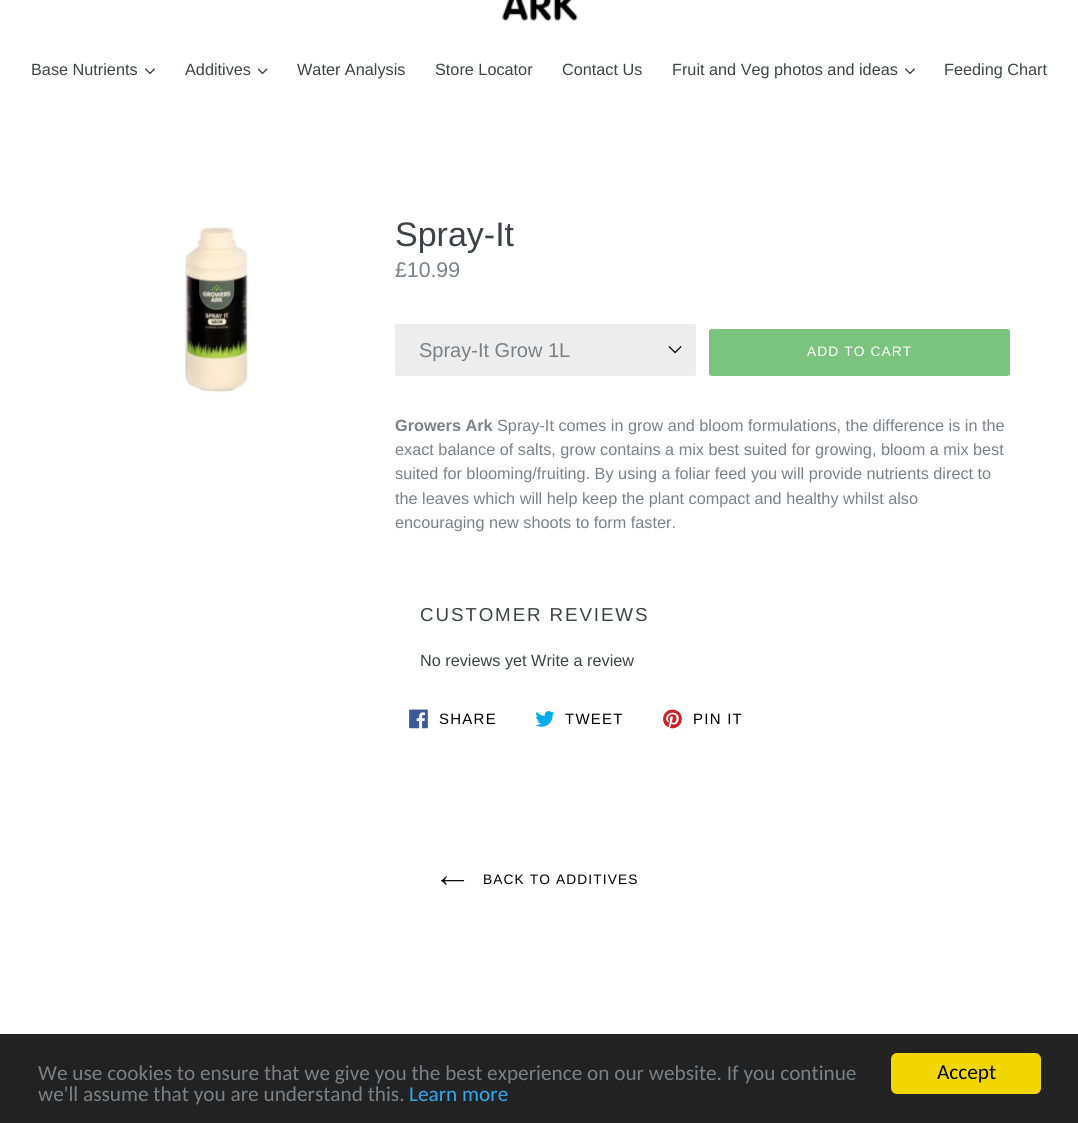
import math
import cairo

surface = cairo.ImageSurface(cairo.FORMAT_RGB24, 1078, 1123)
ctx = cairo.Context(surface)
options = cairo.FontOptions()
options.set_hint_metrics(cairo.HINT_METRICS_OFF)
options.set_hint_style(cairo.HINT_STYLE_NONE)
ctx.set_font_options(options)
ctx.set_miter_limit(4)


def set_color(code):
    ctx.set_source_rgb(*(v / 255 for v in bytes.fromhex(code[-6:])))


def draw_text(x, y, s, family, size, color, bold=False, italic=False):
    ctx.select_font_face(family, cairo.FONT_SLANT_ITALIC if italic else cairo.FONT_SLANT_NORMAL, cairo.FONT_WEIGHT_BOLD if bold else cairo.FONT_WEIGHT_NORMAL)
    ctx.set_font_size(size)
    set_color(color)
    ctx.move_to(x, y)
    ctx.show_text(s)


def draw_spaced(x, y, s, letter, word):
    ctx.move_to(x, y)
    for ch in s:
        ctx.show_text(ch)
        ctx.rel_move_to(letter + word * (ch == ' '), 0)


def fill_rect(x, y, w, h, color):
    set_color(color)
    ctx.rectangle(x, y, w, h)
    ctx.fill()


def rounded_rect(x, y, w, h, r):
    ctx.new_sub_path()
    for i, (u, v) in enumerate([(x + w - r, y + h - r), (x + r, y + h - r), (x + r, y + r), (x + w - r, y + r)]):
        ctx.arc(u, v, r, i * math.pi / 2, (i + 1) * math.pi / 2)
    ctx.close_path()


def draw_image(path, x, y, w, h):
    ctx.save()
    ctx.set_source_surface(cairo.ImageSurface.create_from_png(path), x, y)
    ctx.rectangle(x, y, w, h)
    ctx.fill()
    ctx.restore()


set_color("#ffffff")
ctx.paint()
draw_image("assets/img1.png", 502, 0, 76, 21)
draw_text(31, 75, "Base Nutrients", "Liberation Sans", 16.25, "#3d4246")
draw_image("assets/img2.png", 145, 68, 10, 6)
draw_text(185, 75, "Additives", "Liberation Sans", 16.25, "#3d4246")
draw_image("assets/img3.png", 258, 68, 10, 7)
draw_text(297, 75, "Water Analysis", "Liberation Sans", 16.25, "#3d4246")
draw_text(435, 75, "Store Locator", "Liberation Sans", 16.25, "#3d4246")
draw_text(562, 75, "Contact Us", "Liberation Sans", 16.25, "#3d4246")
draw_text(672, 75, "Fruit and Veg photos and ideas", "Liberation Sans", 16.25, "#3d4246")
draw_image("assets/img2.png", 905, 68, 10, 6)
draw_text(944, 75, "Feeding Chart", "Liberation Sans", 16.25, "#3d4246")
draw_image("assets/img4.png", 185, 226, 65, 167)
draw_text(395, 246, "Spray-It", "Liberation Sans", 34, "#3d4246")
draw_text(395, 277, "£10.99", "Liberation Sans", 21.25, "#788188")
set_color("#ededed")
rounded_rect(395, 324, 301, 52, 2.5)
ctx.fill()
draw_image("assets/img5.png", 668, 346, 14, 8)
draw_text(419, 357, "Spray-It Grow 1L", "Liberation Sans", 20, "#788188")
set_color("#7ac47d")
rounded_rect(709, 329, 301, 47, 2.5)
ctx.fill()
ctx.set_font_size(13.75)
set_color("#ffffff")
draw_spaced(807, 356, "ADD TO CART", 1.1, 0)
draw_text(395, 431, "Growers Ark", "Liberation Sans", 16.25, "#788188", bold=True)
draw_text(497, 431, "Spray-It comes in grow and bloom formulations, the difference is in the", "Liberation Sans", 16.25, "#788188")
draw_text(395, 455, "exact balance of salts, grow contains a mix best suited for growing, bloom a mix best", "Liberation Sans", 16.25, "#788188")
draw_text(395, 479, "suited for blooming/fruiting. By using a foliar feed you will provide nutrients direct to", "Liberation Sans", 16.25, "#788188")
draw_text(395, 504, "the leaves which will help keep the plant compact and healthy whilst also", "Liberation Sans", 16.25, "#788188")
draw_text(395, 528, "encouraging new shoots to form faster.", "Liberation Sans", 16.25, "#788188")
ctx.set_font_size(18.75)
set_color("#3d4246")
draw_spaced(420, 621, "CUSTOMER REVIEWS", 1.9, 0)
draw_text(420, 666, "No reviews yet Write a review", "Liberation Sans", 16.25, "#3d4246")
draw_image("assets/img6.png", 409, 709, 19, 20)
ctx.set_font_size(15)
set_color("#000000")
draw_spaced(439, 724, "SHARE", 1.25, 0)
draw_image("assets/img7.png", 535, 711, 20, 16)
draw_spaced(565, 724, "TWEET", 1.25, 0)
draw_image("assets/img8.png", 663, 709, 19, 20)
draw_spaced(693, 724, "PIN IT", 1.25, 0)
draw_image("assets/img9.png", 441, 876, 24, 10)
ctx.set_font_size(13.75)
draw_spaced(483, 884, "BACK TO ADDITIVES", 1.1, 0)
fill_rect(0, 1034, 1078, 89, "#222222")
draw_text(38, 1080, "We use cookies to ensure that we give you the best experience on our website. If you continue", "Carlito", 21.25, "#788188")
draw_text(38, 1101, "we'll assume that you are understand this.", "Carlito", 21.25, "#788188")
draw_text(409, 1101, "Learn more", "Carlito", 21.25, "#31a8f0")
set_color("#f1d600")
rounded_rect(891, 1053, 150, 41, 6)
ctx.fill()
draw_text(937, 1079, "Accept", "Carlito", 21.25, "#000000")
surface.write_to_png("output.png")
